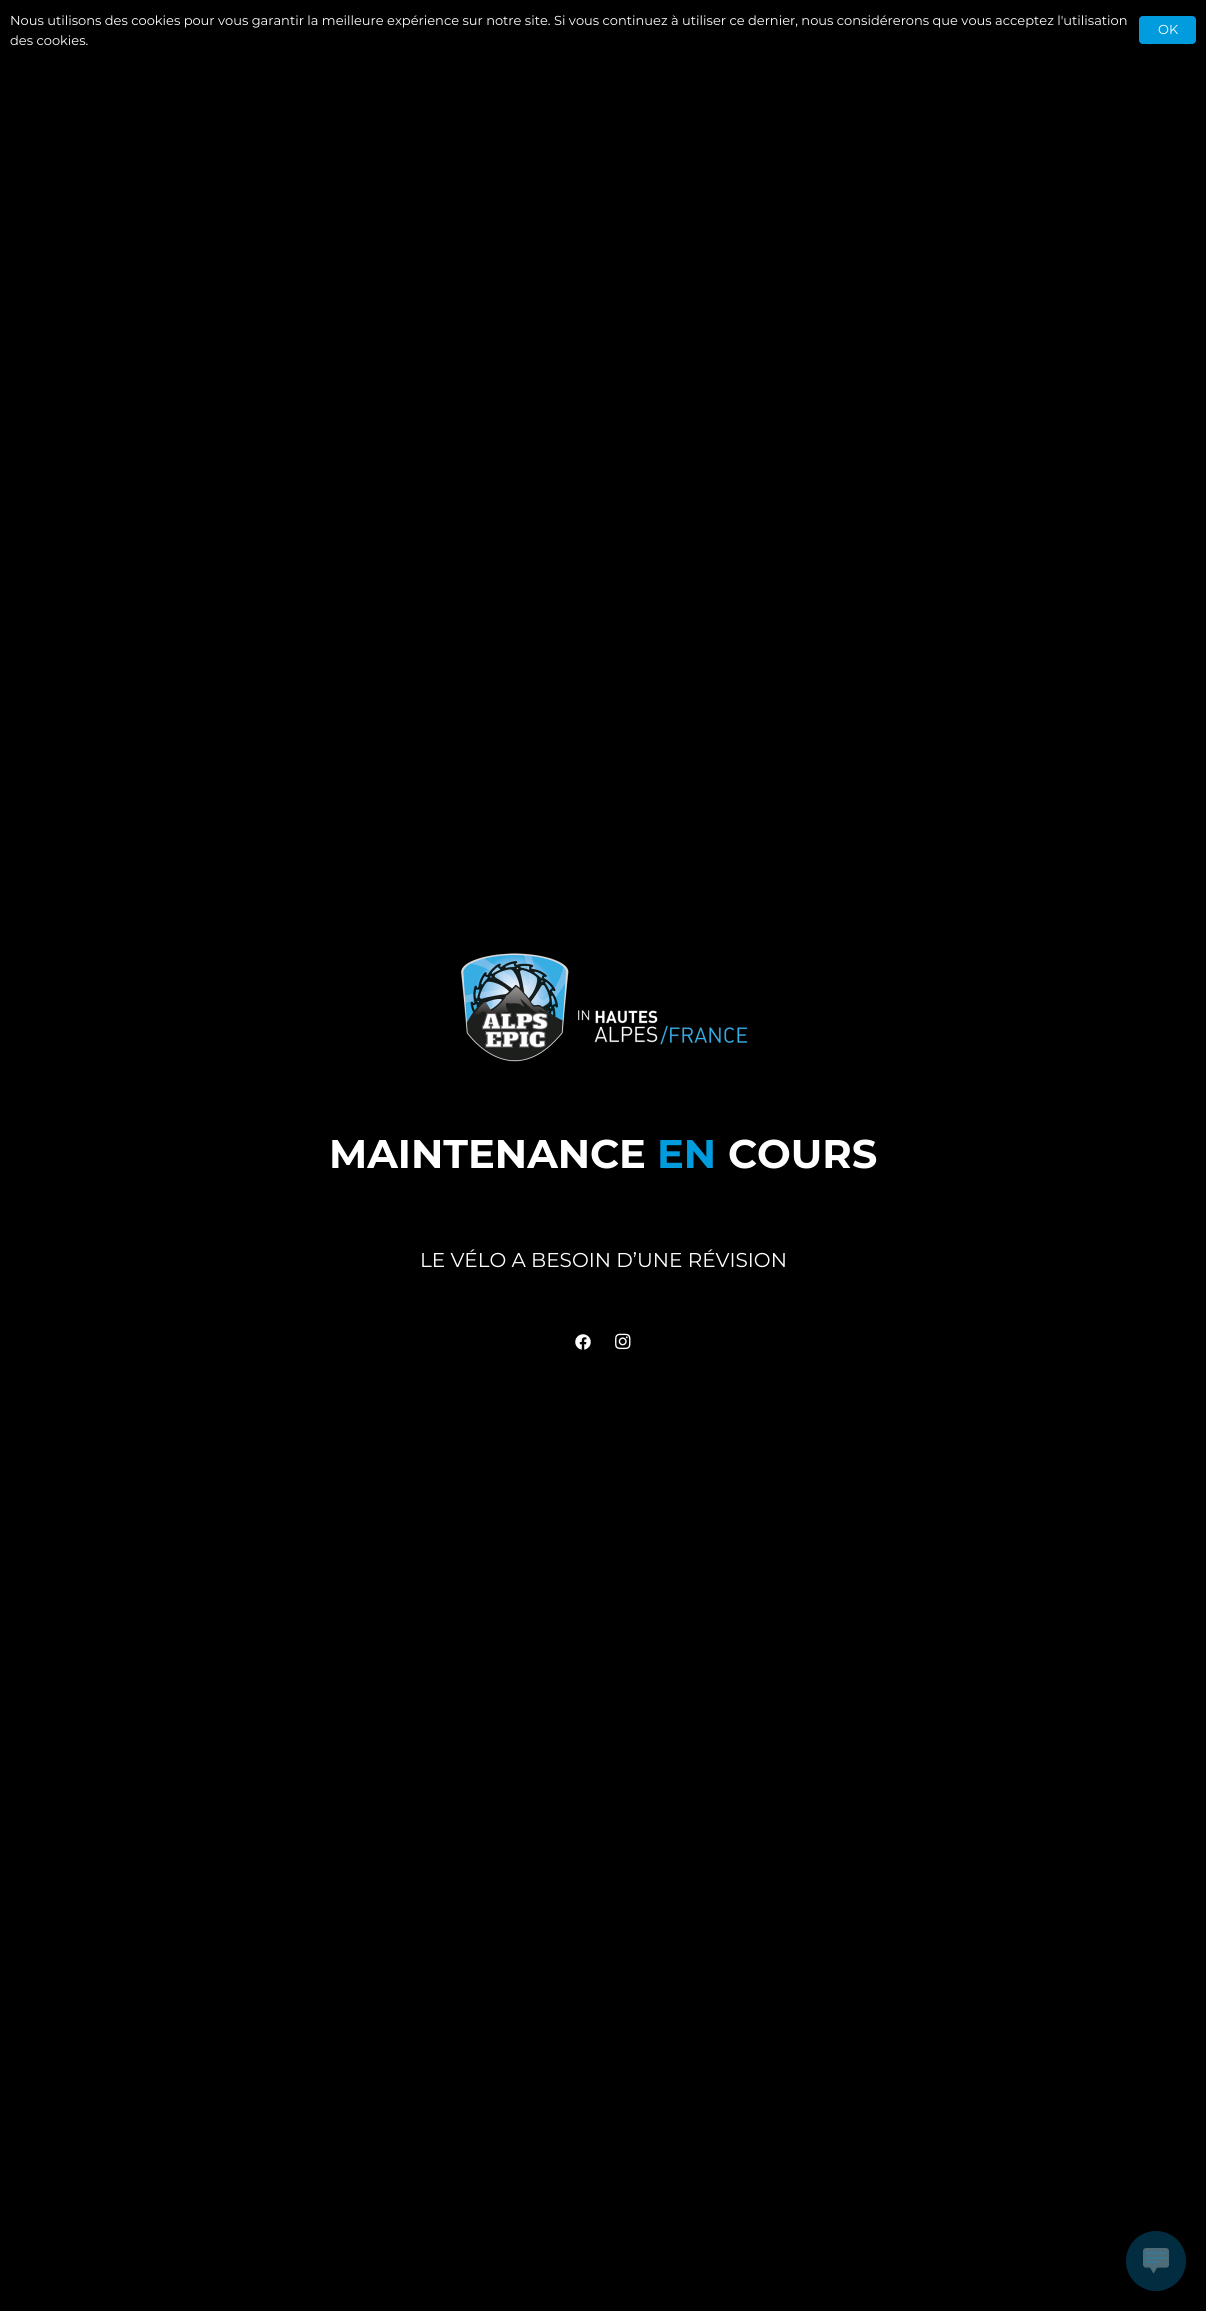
import math
import cairo

surface = cairo.ImageSurface(cairo.FORMAT_RGB24, 1206, 2311)
ctx = cairo.Context(surface)
options = cairo.FontOptions()
options.set_hint_metrics(cairo.HINT_METRICS_OFF)
options.set_hint_style(cairo.HINT_STYLE_NONE)
ctx.set_font_options(options)
ctx.set_miter_limit(4)


def set_color(code):
    ctx.set_source_rgb(*(v / 255 for v in bytes.fromhex(code[-6:])))


def draw_text(x, y, s, family, size, color, bold=False, italic=False):
    ctx.select_font_face(family, cairo.FONT_SLANT_ITALIC if italic else cairo.FONT_SLANT_NORMAL, cairo.FONT_WEIGHT_BOLD if bold else cairo.FONT_WEIGHT_NORMAL)
    ctx.set_font_size(size)
    set_color(color)
    ctx.move_to(x, y)
    ctx.show_text(s)


def rounded_rect(x, y, w, h, r):
    ctx.new_sub_path()
    for i, (u, v) in enumerate([(x + w - r, y + h - r), (x + r, y + h - r), (x + r, y + r), (x + w - r, y + r)]):
        ctx.arc(u, v, r, i * math.pi / 2, (i + 1) * math.pi / 2)
    ctx.close_path()


def draw_image(path, x, y, w, h):
    ctx.save()
    ctx.set_source_surface(cairo.ImageSurface.create_from_png(path), x, y)
    ctx.rectangle(x, y, w, h)
    ctx.fill()
    ctx.restore()


set_color("#000000")
ctx.paint()
draw_text(10, 25, "Nous utilisons des cookies pour vous garantir la meilleure expérience sur notre site. Si vous continuez à utiliser ce dernier, nous considérerons que vous acceptez l'utilisation", "Montserrat", 13, "#ffffff")
draw_text(10, 45, "des cookies.", "Montserrat", 13, "#ffffff")
set_color("#009cdd")
rounded_rect(1139, 16, 57, 28, 4)
ctx.fill()
draw_text(1158, 34, "OK", "Montserrat", 13, "#ffffff")
draw_image("assets/img1.png", 460, 953, 288, 109)
draw_text(329, 1168, "MAINTENANCE", "Montserrat", 40, "#ffffff", bold=True)
draw_text(657, 1168, "EN", "Montserrat", 40, "#009cdd", bold=True)
draw_text(728, 1168, "COURS", "Montserrat", 40, "#ffffff", bold=True)
draw_text(420, 1267, "LE VÉLO A BESOIN D’UNE RÉVISION", "Montserrat", 20, "#ffffff")
draw_image("assets/img2.png", 575, 1334, 16, 16)
draw_image("assets/img3.png", 615, 1333, 16, 17)
set_color("#022d40")
ctx.arc(1156, 2261, 30, 0, 2 * math.pi)
ctx.fill()
draw_image("assets/img4.png", 1143, 2248, 26, 26)
surface.write_to_png("output.png")
